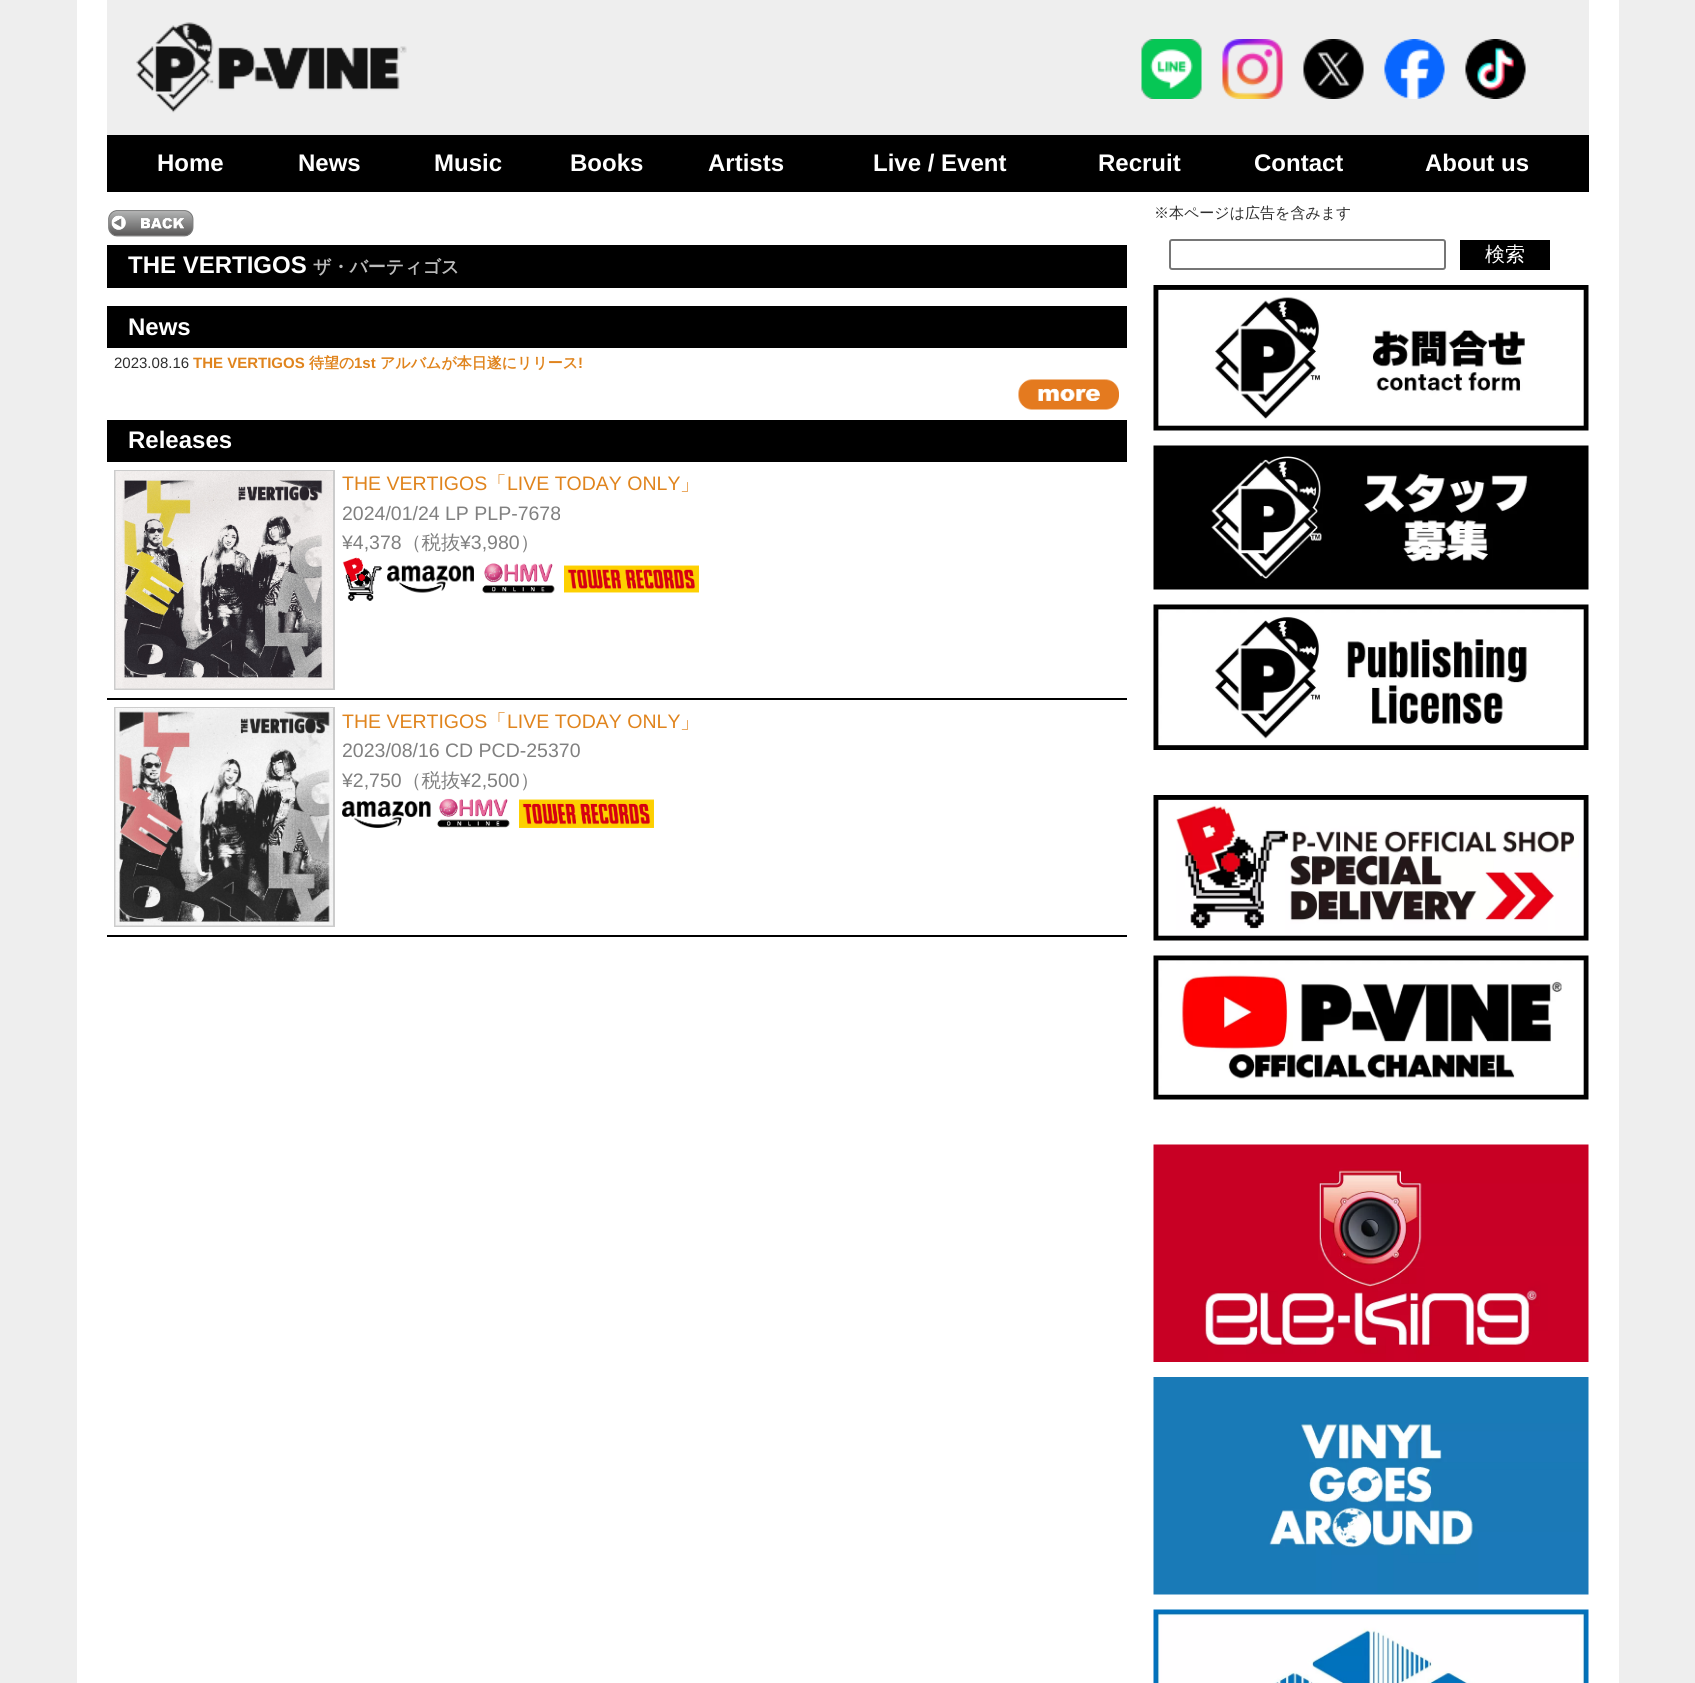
import math
import cairo

surface = cairo.ImageSurface(cairo.FORMAT_RGB24, 1695, 1683)
ctx = cairo.Context(surface)
options = cairo.FontOptions()
options.set_hint_metrics(cairo.HINT_METRICS_OFF)
options.set_hint_style(cairo.HINT_STYLE_NONE)
ctx.set_font_options(options)
ctx.set_miter_limit(4)


def set_color(code):
    ctx.set_source_rgb(*(v / 255 for v in bytes.fromhex(code[-6:])))


def draw_text(x, y, s, family, size, color, bold=False, italic=False):
    ctx.select_font_face(family, cairo.FONT_SLANT_ITALIC if italic else cairo.FONT_SLANT_NORMAL, cairo.FONT_WEIGHT_BOLD if bold else cairo.FONT_WEIGHT_NORMAL)
    ctx.set_font_size(size)
    set_color(color)
    ctx.move_to(x, y)
    ctx.show_text(s)


def fill_rect(x, y, w, h, color):
    set_color(color)
    ctx.rectangle(x, y, w, h)
    ctx.fill()


def rounded_rect(x, y, w, h, r):
    ctx.new_sub_path()
    for i, (u, v) in enumerate([(x + w - r, y + h - r), (x + r, y + h - r), (x + r, y + r), (x + w - r, y + r)]):
        ctx.arc(u, v, r, i * math.pi / 2, (i + 1) * math.pi / 2)
    ctx.close_path()


def draw_image(path, x, y, w, h):
    ctx.save()
    ctx.set_source_surface(cairo.ImageSurface.create_from_png(path), x, y)
    ctx.rectangle(x, y, w, h)
    ctx.fill()
    ctx.restore()


set_color("#eeeeee")
ctx.paint()
fill_rect(77, 0, 1542, 1683, "#ffffff")
fill_rect(107, 0, 1482, 135, "#eeeeee")
draw_image("assets/img1.png", 136, 22, 271, 91)
draw_image("assets/img2.png", 1141, 39, 61, 60)
draw_image("assets/img3.png", 1222, 39, 61, 60)
draw_image("assets/img4.png", 1303, 39, 61, 60)
draw_image("assets/img5.png", 1384, 39, 61, 60)
draw_image("assets/img6.png", 1465, 39, 61, 60)
fill_rect(107, 135, 1482, 57, "#000000")
draw_text(157, 171, "Home", "Liberation Sans", 24, "#ffffff", bold=True)
draw_text(298, 171, "News", "Liberation Sans", 24, "#ffffff", bold=True)
draw_text(434, 171, "Music", "Liberation Sans", 24, "#ffffff", bold=True)
draw_text(570, 171, "Books", "Liberation Sans", 24, "#ffffff", bold=True)
draw_text(708, 171, "Artists", "Liberation Sans", 24, "#ffffff", bold=True)
draw_text(873, 171, "Live / Event", "Liberation Sans", 24, "#ffffff", bold=True)
draw_text(1098, 171, "Recruit", "Liberation Sans", 24, "#ffffff", bold=True)
draw_text(1254, 171, "Contact", "Liberation Sans", 24, "#ffffff", bold=True)
draw_text(1425, 171, "About us", "Liberation Sans", 24, "#ffffff", bold=True)
draw_text(1154, 218, "※本ページは広告を含みます", "WenQuanYi Zen Hei Medium", 15, "#2e2e2e")
rounded_rect(1170, 240, 275, 29, 2)
set_color("#767676")
ctx.stroke()
fill_rect(1460, 240, 90, 30, "#000000")
draw_text(1485, 261, "検索", "WenQuanYi Zen Hei Medium", 20, "#ffffff")
draw_image("assets/img7.png", 1153, 285, 436, 146)
draw_image("assets/img8.png", 1153, 445, 436, 145)
draw_image("assets/img9.png", 1153, 604, 436, 146)
draw_image("assets/img10.png", 1153, 795, 436, 146)
draw_image("assets/img11.png", 1153, 955, 436, 145)
draw_image("assets/img12.png", 1153, 1144, 436, 218)
draw_image("assets/img13.png", 1153, 1377, 436, 218)
draw_image("assets/img14.png", 1153, 1609, 436, 74)
draw_image("assets/img15.png", 108, 210, 86, 27)
fill_rect(107, 245, 1020, 43, "#000000")
draw_text(128, 273, "THE VERTIGOS", "Liberation Sans", 24, "#ffffff", bold=True)
draw_text(313, 273, "ザ・バーティゴス", "WenQuanYi Zen Hei", 18, "#bbbbbb", bold=True)
fill_rect(107, 306, 1020, 42, "#000000")
draw_text(128, 335, "News", "Liberation Sans", 24, "#ffffff", bold=True)
draw_text(114, 368, "2023.08.16", "Liberation Sans", 15, "#2e2e2e")
draw_text(193, 368, "THE VERTIGOS", "Liberation Sans", 15, "#e0841d", bold=True)
draw_text(309, 368, "待望の", "WenQuanYi Zen Hei", 15, "#e0841d", bold=True)
draw_text(354, 368, "1st", "Liberation Sans", 15, "#e0841d", bold=True)
draw_text(380, 368, "アルバムが本日遂にリリース", "WenQuanYi Zen Hei", 15, "#e0841d", bold=True)
draw_text(578, 368, "!", "Liberation Sans", 15, "#e0841d", bold=True)
draw_image("assets/img16.png", 1018, 379, 101, 31)
fill_rect(107, 420, 1020, 42, "#000000")
draw_text(128, 448, "Releases", "Liberation Sans", 24, "#ffffff", bold=True)
fill_rect(107, 698, 1020, 2, "#000000")
ctx.rectangle(115, 471, 219, 218)
set_color("#cccccc")
ctx.stroke()
draw_image("assets/img17.png", 115, 471, 218, 218)
draw_text(342, 490, "THE VERTIGOS", "Liberation Sans", 19.5, "#e0841d")
draw_text(487, 490, "「", "WenQuanYi Zen Hei Medium", 19.5, "#e0841d")
draw_text(507, 490, "LIVE TODAY ONLY", "Liberation Sans", 19.5, "#e0841d")
draw_text(680, 490, "」", "WenQuanYi Zen Hei Medium", 19.5, "#e0841d")
draw_text(342, 520, "2024/01/24 LP PLP-7678", "Liberation Sans", 19.5, "#808080")
draw_text(342, 549, "¥4,378", "Liberation Sans", 19.5, "#808080")
draw_text(402, 549, "（税抜", "WenQuanYi Zen Hei Medium", 19.5, "#808080")
draw_text(460, 549, "¥3,980", "Liberation Sans", 19.5, "#808080")
draw_text(520, 549, "）", "WenQuanYi Zen Hei Medium", 19.5, "#808080")
draw_image("assets/img18.png", 342, 557, 40, 44)
draw_image("assets/img19.png", 387, 565, 87, 28)
draw_image("assets/img20.png", 482, 563, 73, 31)
draw_image("assets/img21.png", 564, 565, 135, 28)
fill_rect(107, 935, 1020, 2, "#000000")
ctx.rectangle(115, 708, 219, 218)
set_color("#cccccc")
ctx.stroke()
draw_image("assets/img22.png", 115, 708, 218, 218)
draw_text(342, 728, "THE VERTIGOS", "Liberation Sans", 19.5, "#e0841d")
draw_text(487, 728, "「", "WenQuanYi Zen Hei Medium", 19.5, "#e0841d")
draw_text(507, 728, "LIVE TODAY ONLY", "Liberation Sans", 19.5, "#e0841d")
draw_text(680, 728, "」", "WenQuanYi Zen Hei Medium", 19.5, "#e0841d")
draw_text(342, 757, "2023/08/16 CD PCD-25370", "Liberation Sans", 19.5, "#808080")
draw_text(342, 787, "¥2,750", "Liberation Sans", 19.5, "#808080")
draw_text(402, 787, "（税抜", "WenQuanYi Zen Hei Medium", 19.5, "#808080")
draw_text(460, 787, "¥2,500", "Liberation Sans", 19.5, "#808080")
draw_text(520, 787, "）", "WenQuanYi Zen Hei Medium", 19.5, "#808080")
draw_image("assets/img23.png", 342, 801, 89, 27)
draw_image("assets/img24.png", 436, 798, 74, 30)
draw_image("assets/img25.png", 519, 799, 135, 29)
surface.write_to_png("output.png")
